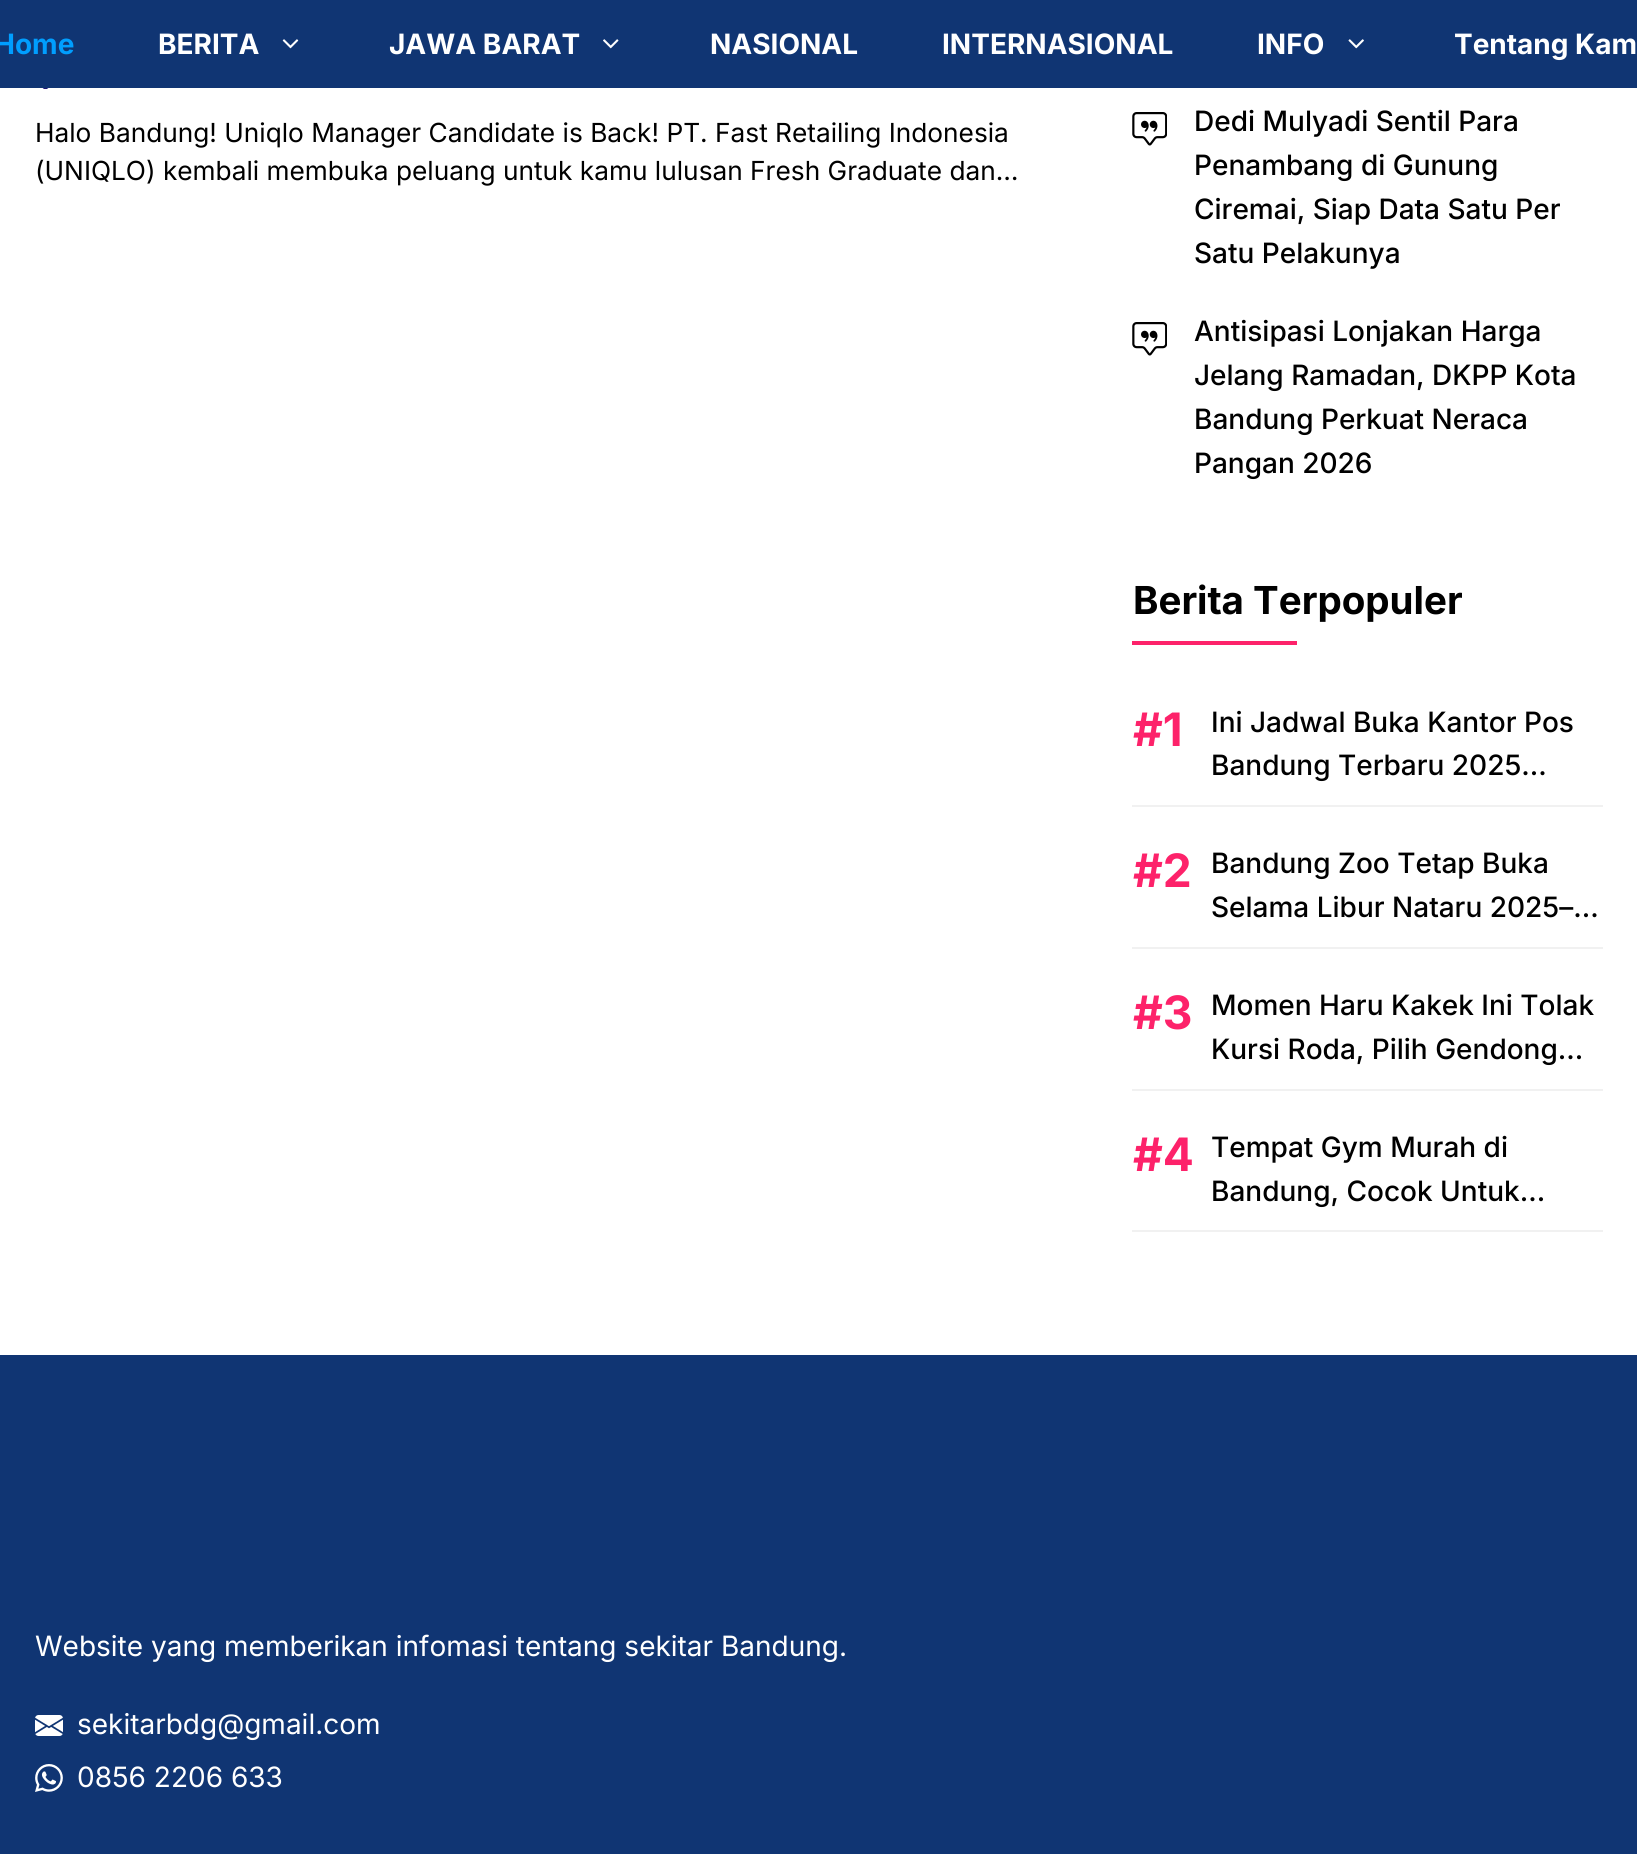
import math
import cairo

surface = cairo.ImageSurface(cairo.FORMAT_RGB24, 1637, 1854)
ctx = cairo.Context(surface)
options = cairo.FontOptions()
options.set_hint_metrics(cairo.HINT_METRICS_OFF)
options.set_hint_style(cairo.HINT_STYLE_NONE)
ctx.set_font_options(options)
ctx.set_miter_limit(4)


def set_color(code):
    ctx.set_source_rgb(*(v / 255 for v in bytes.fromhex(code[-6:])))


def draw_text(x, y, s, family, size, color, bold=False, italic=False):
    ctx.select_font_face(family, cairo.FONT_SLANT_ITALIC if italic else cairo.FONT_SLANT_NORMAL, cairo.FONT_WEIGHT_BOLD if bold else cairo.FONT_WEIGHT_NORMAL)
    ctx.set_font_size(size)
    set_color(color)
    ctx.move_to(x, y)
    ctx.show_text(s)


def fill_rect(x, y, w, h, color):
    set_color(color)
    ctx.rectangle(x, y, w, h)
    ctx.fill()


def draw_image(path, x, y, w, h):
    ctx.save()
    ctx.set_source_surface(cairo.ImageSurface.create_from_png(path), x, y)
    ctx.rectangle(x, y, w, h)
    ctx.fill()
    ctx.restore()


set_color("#ffffff")
ctx.paint()
fill_rect(0, 0, 1637, 88, "#103573")
draw_text(-6, 54, "Home", "Inter", 28, "#009eff", bold=True)
draw_text(158, 54, "BERITA", "Inter", 28, "#ffffff", bold=True)
draw_image("assets/img1.png", 282, 39, 17, 10)
draw_text(389, 54, "JAWA BARAT", "Inter", 28, "#ffffff", bold=True)
draw_image("assets/img2.png", 603, 39, 16, 10)
draw_text(710, 54, "NASIONAL", "Inter", 28, "#ffffff", bold=True)
draw_text(942, 54, "INTERNASIONAL", "Inter", 28, "#ffffff", bold=True)
draw_text(1257, 54, "INFO", "Inter", 28, "#ffffff", bold=True)
draw_image("assets/img3.png", 1348, 39, 16, 10)
draw_text(1454, 54, "Tentang Kam", "Inter", 28, "#ffffff", bold=True)
draw_image("assets/img4.png", 42, 88, 7, 1)
draw_text(35, 142, "Halo Bandung! Uniqlo Manager Candidate is Back! PT. Fast Retailing Indonesia", "Inter", 26.25, "#000000")
draw_text(35, 180, "(UNIQLO) kembali membuka peluang untuk kamu lulusan Fresh Graduate dan…", "Inter", 26.25, "#000000")
draw_image("assets/img5.png", 1132, 112, 35, 34)
draw_text(1194, 131, "Dedi Mulyadi Sentil Para", "Inter Medium", 28, "#000000")
draw_text(1194, 175, "Penambang di Gunung", "Inter Medium", 28, "#000000")
draw_text(1194, 219, "Ciremai, Siap Data Satu Per", "Inter Medium", 28, "#000000")
draw_text(1194, 263, "Satu Pelakunya", "Inter Medium", 28, "#000000")
draw_image("assets/img5.png", 1132, 322, 35, 34)
draw_text(1194, 341, "Antisipasi Lonjakan Harga", "Inter Medium", 28, "#000000")
draw_text(1194, 385, "Jelang Ramadan, DKPP Kota", "Inter Medium", 28, "#000000")
draw_text(1194, 429, "Bandung Perkuat Neraca", "Inter Medium", 28, "#000000")
draw_text(1194, 473, "Pangan 2026", "Inter Medium", 28, "#000000")
draw_text(1133, 614, "Berita Terpopuler", "Inter", 38.5, "#000000", bold=True)
fill_rect(1132, 641, 165, 4, "#fd226a")
draw_text(1133, 746, "#1", "Inter", 46, "#fd226a", bold=True)
fill_rect(1132, 805, 471, 2, "#f1f1f1")
draw_text(1211, 732, "Ini Jadwal Buka Kantor Pos", "Inter Medium", 28, "#000000")
draw_text(1211, 775, "Bandung Terbaru 2025…", "Inter Medium", 28, "#000000")
draw_text(1133, 887, "#2", "Inter", 46, "#fd226a", bold=True)
fill_rect(1132, 947, 471, 2, "#f1f1f1")
draw_text(1211, 873, "Bandung Zoo Tetap Buka", "Inter Medium", 28, "#000000")
draw_text(1211, 917, "Selama Libur Nataru 2025–…", "Inter Medium", 28, "#000000")
draw_text(1133, 1029, "#3", "Inter", 46, "#fd226a", bold=True)
fill_rect(1132, 1089, 471, 2, "#f1f1f1")
draw_text(1211, 1015, "Momen Haru Kakek Ini Tolak", "Inter Medium", 28, "#000000")
draw_text(1211, 1059, "Kursi Roda, Pilih Gendong…", "Inter Medium", 28, "#000000")
draw_text(1133, 1171, "#4", "Inter", 46, "#fd226a", bold=True)
fill_rect(1132, 1230, 471, 2, "#f1f1f1")
draw_text(1211, 1157, "Tempat Gym Murah di", "Inter Medium", 28, "#000000")
draw_text(1211, 1201, "Bandung, Cocok Untuk…", "Inter Medium", 28, "#000000")
fill_rect(0, 1355, 1637, 499, "#103573")
draw_text(35, 1656, "Website yang memberikan infomasi tentang sekitar Bandung.", "Inter", 28, "#ffffff")
draw_image("assets/img6.png", 35, 1715, 28, 21)
draw_text(77, 1734, "sekitarbdg@gmail.com", "Inter", 28, "#ffffff")
draw_image("assets/img7.png", 35, 1764, 28, 28)
draw_text(77, 1787, "0856 2206 633", "Inter", 28, "#ffffff")
surface.write_to_png("output.png")
